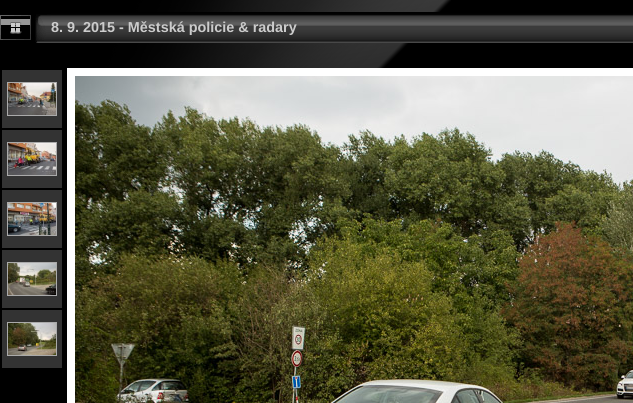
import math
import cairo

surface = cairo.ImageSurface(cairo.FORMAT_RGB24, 633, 403)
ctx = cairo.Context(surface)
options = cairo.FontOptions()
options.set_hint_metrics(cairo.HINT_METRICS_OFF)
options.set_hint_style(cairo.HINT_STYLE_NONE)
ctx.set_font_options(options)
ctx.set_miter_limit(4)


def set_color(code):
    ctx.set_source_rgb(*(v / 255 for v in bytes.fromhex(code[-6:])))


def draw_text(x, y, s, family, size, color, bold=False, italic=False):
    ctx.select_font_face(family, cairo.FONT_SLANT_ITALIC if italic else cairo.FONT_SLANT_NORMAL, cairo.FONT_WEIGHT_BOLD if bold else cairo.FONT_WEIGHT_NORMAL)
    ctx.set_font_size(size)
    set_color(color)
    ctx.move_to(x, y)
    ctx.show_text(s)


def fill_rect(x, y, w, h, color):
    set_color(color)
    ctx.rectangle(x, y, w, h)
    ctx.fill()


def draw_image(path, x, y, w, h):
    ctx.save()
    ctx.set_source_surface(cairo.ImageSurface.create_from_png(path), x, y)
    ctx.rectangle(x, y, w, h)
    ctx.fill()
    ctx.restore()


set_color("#000000")
ctx.paint()
draw_image("assets/img1.png", 102, 0, 349, 68)
draw_image("assets/img2.png", 0, 15, 31, 25)
draw_image("assets/img3.png", 35, 14, 16, 29)
draw_image("assets/img4.png", 51, 12, 582, 31)
draw_text(51, 32, "8. 9. 2015 - Městská policie & radary", "Liberation Sans", 14.4, "#cccccc", bold=True)
fill_rect(2, 70, 60, 58, "#333333")
ctx.rectangle(7.5, 82.5, 49, 33)
set_color("#aaaaaa")
ctx.set_line_width(1)
ctx.stroke()
draw_image("assets/img5.png", 8, 83, 48, 32)
fill_rect(2, 130, 60, 58, "#333333")
ctx.rectangle(7.5, 142.5, 49, 33)
set_color("#aaaaaa")
ctx.stroke()
draw_image("assets/img6.png", 8, 143, 48, 32)
fill_rect(2, 190, 60, 58, "#333333")
ctx.rectangle(7.5, 202.5, 49, 33)
set_color("#aaaaaa")
ctx.stroke()
draw_image("assets/img7.png", 8, 203, 48, 32)
fill_rect(2, 250, 60, 58, "#333333")
ctx.rectangle(7.5, 262.5, 49, 33)
set_color("#aaaaaa")
ctx.stroke()
draw_image("assets/img8.png", 8, 263, 48, 32)
fill_rect(2, 310, 60, 58, "#333333")
ctx.rectangle(7.5, 322.5, 49, 33)
set_color("#aaaaaa")
ctx.stroke()
draw_image("assets/img9.png", 8, 323, 48, 32)
ctx.rectangle(71, 72, 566, 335)
set_color("#ffffff")
ctx.set_line_width(8)
ctx.stroke()
draw_image("assets/img10.png", 75, 76, 558, 327)
surface.write_to_png("output.png")
